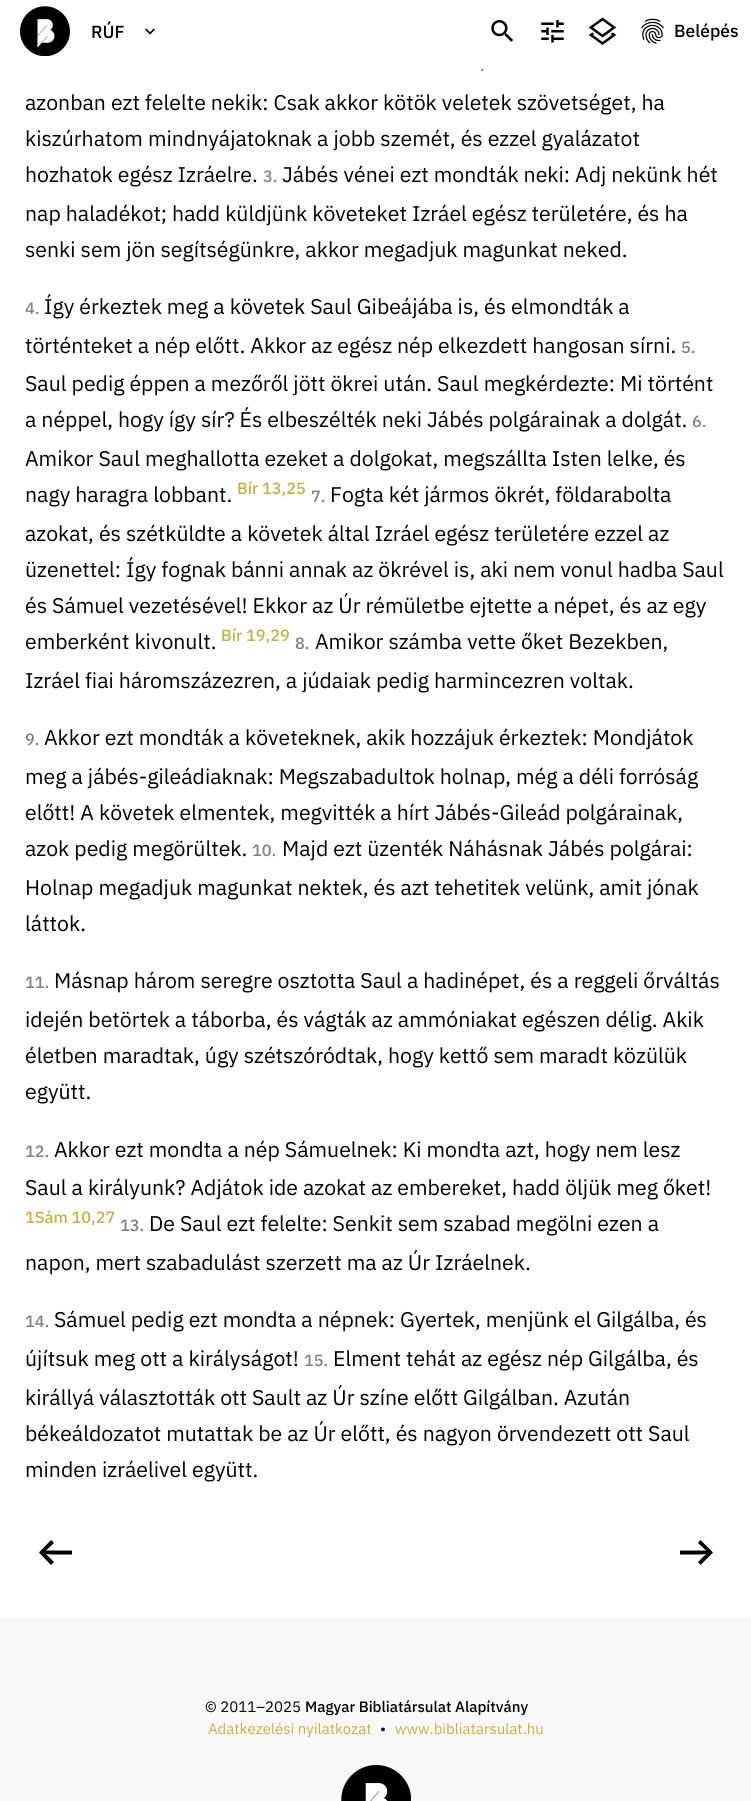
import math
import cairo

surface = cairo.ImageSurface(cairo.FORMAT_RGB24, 751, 1801)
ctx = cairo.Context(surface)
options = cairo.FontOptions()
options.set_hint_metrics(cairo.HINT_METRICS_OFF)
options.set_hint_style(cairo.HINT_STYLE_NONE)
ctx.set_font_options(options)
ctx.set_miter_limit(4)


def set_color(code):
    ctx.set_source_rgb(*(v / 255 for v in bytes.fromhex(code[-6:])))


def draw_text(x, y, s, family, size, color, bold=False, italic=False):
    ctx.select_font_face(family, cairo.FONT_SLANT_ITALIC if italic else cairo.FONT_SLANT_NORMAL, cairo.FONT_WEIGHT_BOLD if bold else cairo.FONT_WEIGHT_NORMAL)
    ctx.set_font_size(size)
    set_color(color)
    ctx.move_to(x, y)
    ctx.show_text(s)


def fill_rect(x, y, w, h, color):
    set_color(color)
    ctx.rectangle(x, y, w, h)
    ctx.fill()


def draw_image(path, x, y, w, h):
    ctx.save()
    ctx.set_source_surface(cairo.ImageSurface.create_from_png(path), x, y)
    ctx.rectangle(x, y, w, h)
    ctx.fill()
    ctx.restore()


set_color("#f8f8f8")
ctx.paint()
fill_rect(0, 0, 751, 1618, "#ffffff")
draw_image("assets/img1.png", 20, 6, 50, 50)
draw_image("assets/img2.png", 145, 28, 10, 7)
draw_text(91, 38, "RÚF", "IBM Plex Sans Medium", 17.5, "#000000")
draw_image("assets/img3.png", 491, 20, 22, 22)
draw_image("assets/img4.png", 541, 20, 23, 23)
draw_image("assets/img5.png", 588, 17, 29, 28)
draw_image("assets/img6.png", 641, 18, 23, 26)
draw_text(674, 37, "Belépés", "IBM Plex Sans Medium", 17.5, "#000000")
draw_text(480, 71, ".", "IBM Plex Sans Medium", 16.25, "#808080")
draw_text(25, 110, "azonban ezt felelte nekik: Csak akkor kötök veletek szövetséget, ha", "IBM Plex Sans", 21.25, "#000000")
draw_text(25, 146, "kiszúrhatom mindnyájatoknak a jobb szemét, és ezzel gyalázatot", "IBM Plex Sans", 21.25, "#000000")
draw_text(25, 182, "hozhatok egész Izráelre.", "IBM Plex Sans", 21.25, "#000000")
draw_text(263, 182, "3.", "IBM Plex Sans Medium", 16.25, "#808080")
draw_text(282, 182, "Jábés vénei ezt mondták neki: Adj nekünk hét", "IBM Plex Sans", 21.25, "#000000")
draw_text(25, 221, "nap haladékot; hadd küldjünk követeket Izráel egész területére, és ha", "IBM Plex Sans", 21.25, "#000000")
draw_text(25, 257, "senki sem jön segítségünkre, akkor megadjuk magunkat neked.", "IBM Plex Sans", 21.25, "#000000")
draw_text(25, 314, "4.", "IBM Plex Sans Medium", 16.25, "#808080")
draw_text(44, 314, "Így érkeztek meg a követek Saul Gibeájába is, és elmondták a", "IBM Plex Sans", 21.25, "#000000")
draw_text(25, 353, "történteket a nép előtt. Akkor az egész nép elkezdett hangosan sírni.", "IBM Plex Sans", 21.25, "#000000")
draw_text(681, 353, "5.", "IBM Plex Sans Medium", 16.25, "#808080")
draw_text(25, 391, "Saul pedig éppen a mezőről jött ökrei után. Saul megkérdezte: Mi történt", "IBM Plex Sans", 21.25, "#000000")
draw_text(25, 427, "a néppel, hogy így sír? És elbeszélték neki Jábés polgárainak a dolgát.", "IBM Plex Sans", 21.25, "#000000")
draw_text(692, 427, "6.", "IBM Plex Sans Medium", 16.25, "#808080")
draw_text(25, 466, "Amikor Saul meghallotta ezeket a dolgokat, megszállta Isten lelke, és", "IBM Plex Sans", 21.25, "#000000")
draw_text(25, 502, "nagy haragra lobbant.", "IBM Plex Sans", 21.25, "#000000")
draw_text(237, 494, "Bír 13,25", "IBM Plex Sans Medium", 16.25, "#c7b13e")
draw_text(311, 502, "7.", "IBM Plex Sans Medium", 16.25, "#808080")
draw_text(330, 502, "Fogta két jármos ökrét, földarabolta", "IBM Plex Sans", 21.25, "#000000")
draw_text(25, 541, "azokat, és szétküldte a követek által Izráel egész területére ezzel az", "IBM Plex Sans", 21.25, "#000000")
draw_text(25, 577, "üzenettel: Így fognak bánni annak az ökrével is, aki nem vonul hadba Saul", "IBM Plex Sans", 21.25, "#000000")
draw_text(25, 613, "és Sámuel vezetésével! Ekkor az Úr rémületbe ejtette a népet, és az egy", "IBM Plex Sans", 21.25, "#000000")
draw_text(25, 649, "emberként kivonult.", "IBM Plex Sans", 21.25, "#000000")
draw_text(221, 641, "Bír 19,29", "IBM Plex Sans Medium", 16.25, "#c7b13e")
draw_text(295, 649, "8.", "IBM Plex Sans Medium", 16.25, "#808080")
draw_text(315, 649, "Amikor számba vette őket Bezekben,", "IBM Plex Sans", 21.25, "#000000")
draw_text(25, 688, "Izráel fiai háromszázezren, a júdaiak pedig harmincezren voltak.", "IBM Plex Sans", 21.25, "#000000")
draw_text(25, 745, "9.", "IBM Plex Sans Medium", 16.25, "#808080")
draw_text(44, 745, "Akkor ezt mondták a követeknek, akik hozzájuk érkeztek: Mondjátok", "IBM Plex Sans", 21.25, "#000000")
draw_text(25, 784, "meg a jábés-gileádiaknak: Megszabadultok holnap, még a déli forróság", "IBM Plex Sans", 21.25, "#000000")
draw_text(25, 820, "előtt! A követek elmentek, megvitték a hírt Jábés-Gileád polgárainak,", "IBM Plex Sans", 21.25, "#000000")
draw_text(25, 856, "azok pedig megörültek.", "IBM Plex Sans", 21.25, "#000000")
draw_text(252, 856, "10.", "IBM Plex Sans Medium", 16.25, "#808080")
draw_text(282, 856, "Majd ezt üzenték Náhásnak Jábés polgárai:", "IBM Plex Sans", 21.25, "#000000")
draw_text(25, 895, "Holnap megadjuk magunkat nektek, és azt tehetitek velünk, amit jónak", "IBM Plex Sans", 21.25, "#000000")
draw_text(25, 931, "láttok.", "IBM Plex Sans", 21.25, "#000000")
draw_text(25, 988, "11.", "IBM Plex Sans Medium", 16.25, "#808080")
draw_text(54, 988, "Másnap három seregre osztotta Saul a hadinépet, és a reggeli őrváltás", "IBM Plex Sans", 21.25, "#000000")
draw_text(25, 1027, "idején betörtek a táborba, és vágták az ammóniakat egészen délig. Akik", "IBM Plex Sans", 21.25, "#000000")
draw_text(25, 1063, "életben maradtak, úgy szétszóródtak, hogy kettő sem maradt közülük", "IBM Plex Sans", 21.25, "#000000")
draw_text(25, 1099, "együtt.", "IBM Plex Sans", 21.25, "#000000")
draw_text(25, 1157, "12.", "IBM Plex Sans Medium", 16.25, "#808080")
draw_text(54, 1157, "Akkor ezt mondta a nép Sámuelnek: Ki mondta azt, hogy nem lesz", "IBM Plex Sans", 21.25, "#000000")
draw_text(25, 1195, "Saul a királyunk? Adjátok ide azokat az embereket, hadd öljük meg őket!", "IBM Plex Sans", 21.25, "#000000")
draw_text(25, 1223, "1Sám 10,27", "IBM Plex Sans Medium", 16.25, "#c7b13e")
draw_text(120, 1231, "13.", "IBM Plex Sans Medium", 16.25, "#808080")
draw_text(149, 1231, "De Saul ezt felelte: Senkit sem szabad megölni ezen a", "IBM Plex Sans", 21.25, "#000000")
draw_text(25, 1270, "napon, mert szabadulást szerzett ma az Úr Izráelnek.", "IBM Plex Sans", 21.25, "#000000")
draw_text(25, 1327, "14.", "IBM Plex Sans Medium", 16.25, "#808080")
draw_text(54, 1327, "Sámuel pedig ezt mondta a népnek: Gyertek, menjünk el Gilgálba, és", "IBM Plex Sans", 21.25, "#000000")
draw_text(25, 1366, "újítsuk meg ott a királyságot!", "IBM Plex Sans", 21.25, "#000000")
draw_text(304, 1366, "15.", "IBM Plex Sans Medium", 16.25, "#808080")
draw_text(333, 1366, "Elment tehát az egész nép Gilgálba, és", "IBM Plex Sans", 21.25, "#000000")
draw_text(25, 1405, "királlyá választották ott Sault az Úr színe előtt Gilgálban. Azután", "IBM Plex Sans", 21.25, "#000000")
draw_text(25, 1441, "békeáldozatot mutattak be az Úr előtt, és nagyon örvendezett ott Saul", "IBM Plex Sans", 21.25, "#000000")
draw_text(25, 1477, "minden izráelivel együtt.", "IBM Plex Sans", 21.25, "#000000")
ctx.new_path()
ctx.move_to(51, 1540)
ctx.line_to(54, 1543)
ctx.line_to(46, 1550.5)
ctx.line_to(51.5, 1550.5)
ctx.line_to(72, 1550.5)
ctx.line_to(72, 1554.5)
ctx.line_to(51.5, 1554.5)
ctx.line_to(46, 1554)
ctx.line_to(54, 1562)
ctx.line_to(51, 1565)
ctx.line_to(39, 1552.5)
ctx.close_path()
ctx.fill()
ctx.new_path()
ctx.move_to(700.5, 1565)
ctx.line_to(698, 1562)
ctx.line_to(706, 1554)
ctx.line_to(700, 1554.5)
ctx.line_to(680, 1554.5)
ctx.line_to(680, 1550.5)
ctx.line_to(700, 1550.5)
ctx.line_to(706, 1550.5)
ctx.line_to(698, 1543)
ctx.line_to(700.5, 1540)
ctx.line_to(713, 1552.5)
ctx.close_path()
ctx.fill()
draw_text(205, 1712, "© 2011–2025", "IBM Plex Sans", 15, "#000000")
draw_text(305, 1712, "Magyar Bibliatársulat Alapítvány", "IBM Plex Sans Medium", 15, "#000000")
draw_text(208, 1734, "Adatkezelési nyilatkozat", "IBM Plex Sans", 15, "#c7b13e")
draw_text(380, 1734, "•", "IBM Plex Sans", 15, "#000000")
draw_text(395, 1734, "www.bibliatarsulat.hu", "IBM Plex Sans", 15, "#c7b13e")
draw_image("assets/img7.png", 341, 1765, 70, 36)
surface.write_to_png("output.png")
